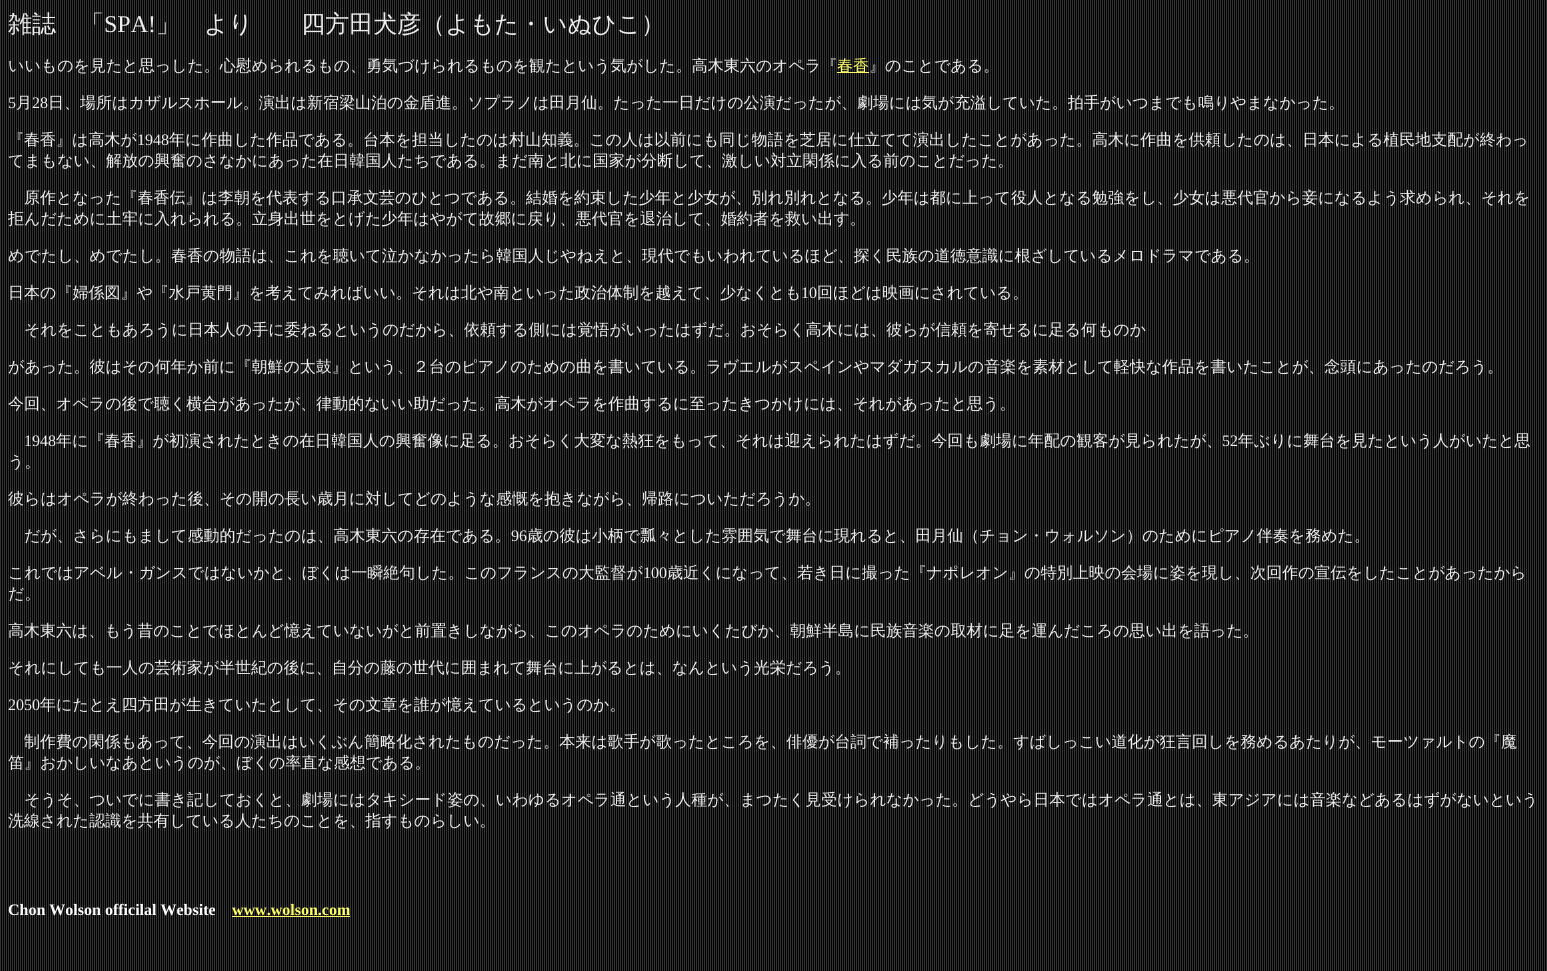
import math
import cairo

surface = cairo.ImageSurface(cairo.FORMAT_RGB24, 1547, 971)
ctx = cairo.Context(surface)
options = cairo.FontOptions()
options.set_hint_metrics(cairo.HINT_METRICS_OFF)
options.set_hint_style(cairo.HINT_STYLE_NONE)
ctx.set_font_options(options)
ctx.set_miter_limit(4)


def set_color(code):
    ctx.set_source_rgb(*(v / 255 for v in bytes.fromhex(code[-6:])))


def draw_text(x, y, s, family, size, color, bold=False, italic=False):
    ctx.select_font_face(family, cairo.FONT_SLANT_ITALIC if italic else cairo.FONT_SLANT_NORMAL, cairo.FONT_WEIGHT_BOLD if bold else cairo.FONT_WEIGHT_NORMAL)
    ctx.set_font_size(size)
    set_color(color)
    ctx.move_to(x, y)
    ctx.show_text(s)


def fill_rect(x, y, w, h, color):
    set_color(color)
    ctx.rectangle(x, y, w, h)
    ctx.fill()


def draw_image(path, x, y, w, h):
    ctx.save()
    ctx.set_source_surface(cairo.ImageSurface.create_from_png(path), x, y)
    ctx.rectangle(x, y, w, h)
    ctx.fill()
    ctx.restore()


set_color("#ffffff")
ctx.paint()
draw_image("assets/img1.png", 0, 0, 1547, 971)
draw_text(8, 32, "雑誌　「", "WenQuanYi Zen Hei Medium", 24, "#eeeeee")
draw_text(104, 32, "SPA!", "Liberation Serif", 24, "#eeeeee")
draw_text(156, 32, "」　より　　四方田犬彦（よもた・いぬひこ）", "WenQuanYi Zen Hei Medium", 24, "#eeeeee")
draw_text(8, 71, "いいものを見たと思っした。心慰められるもの、勇気づけられるものを観たという気がした。高木東六のオペラ『", "WenQuanYi Zen Hei Medium", 16, "#eeeeee")
fill_rect(837, 72, 32, 1, "#ffff66")
draw_text(837, 71, "春香", "WenQuanYi Zen Hei Medium", 16, "#ffff66")
draw_text(869, 71, "』のことである。", "WenQuanYi Zen Hei Medium", 16, "#eeeeee")
draw_text(8, 108, "5", "Liberation Serif", 16, "#eeeeee")
draw_text(16, 108, "月", "WenQuanYi Zen Hei Medium", 16, "#eeeeee")
draw_text(32, 108, "28", "Liberation Serif", 16, "#eeeeee")
draw_text(48, 108, "日、場所はカザルスホール。演出は新宿梁山泊の金盾進。ソプラノは田月仙。たった一日だけの公演だったが、劇場には気が充溢していた。拍手がいつまでも鳴りやまなかった。", "WenQuanYi Zen Hei Medium", 16, "#eeeeee")
draw_text(8, 145, "『春香』は高木が", "WenQuanYi Zen Hei Medium", 16, "#eeeeee")
draw_text(137, 145, "1948", "Liberation Serif", 16, "#eeeeee")
draw_text(169, 145, "年に作曲した作品である。台本を担当したのは村山知義。この人は以前にも同じ物語を芝居に仕立てて演出したことがあった。高木に作曲を供頼したのは、日本による植民地支配が終わっ", "WenQuanYi Zen Hei Medium", 16, "#eeeeee")
draw_text(8, 166, "てまもない、解放の興奮のさなかにあった在日韓国人たちである。まだ南と北に国家が分断して、激しい対立閑係に入る前のことだった。", "WenQuanYi Zen Hei Medium", 16, "#eeeeee")
draw_text(24, 203, "原作となった『春香伝』は李朝を代表する口承文芸のひとつである。結婚を約束した少年と少女が、別れ別れとなる。少年は都に上って役人となる勉強をし、少女は悪代官から妾になるよう求められ、それを", "WenQuanYi Zen Hei Medium", 16, "#eeeeee")
draw_text(8, 224, "拒んだために土牢に入れられる。立身出世をとげた少年はやがて故郷に戻り、悪代官を退治して、婚約者を救い出す。", "WenQuanYi Zen Hei Medium", 16, "#eeeeee")
draw_text(8, 261, "めでたし、めでたし。春香の物語は、これを聴いて泣かなかったら韓国人じやねえと、現代でもいわれているほど、探く民族の道徳意識に根ざしているメロドラマである。", "WenQuanYi Zen Hei Medium", 16, "#eeeeee")
draw_text(8, 298, "日本の『婦係図』や『水戸黄門』を考えてみればいい。それは北や南といった政治体制を越えて、少なくとも", "WenQuanYi Zen Hei Medium", 16, "#eeeeee")
draw_text(801, 298, "10", "Liberation Serif", 16, "#eeeeee")
draw_text(817, 298, "回ほどは映画にされている。", "WenQuanYi Zen Hei Medium", 16, "#eeeeee")
draw_text(24, 335, "それをこともあろうに日本人の手に委ねるというのだから、依頼する側には覚悟がいったはずだ。おそらく高木には、彼らが信頼を寄せるに足る何ものか", "WenQuanYi Zen Hei Medium", 16, "#eeeeee")
draw_text(8, 372, "があった。彼はその何年か前に『朝鮮の太鼓』という、２台のピアノのための曲を書いている。ラヴエルがスペインやマダガスカルの音楽を素材として軽快な作品を書いたことが、念頭にあったのだろう。", "WenQuanYi Zen Hei Medium", 16, "#eeeeee")
draw_text(8, 409, "今回、オペラの後で聴く横合があったが、律動的ないい助だった。高木がオペラを作曲するに至ったきつかけには、それがあったと思う。", "WenQuanYi Zen Hei Medium", 16, "#eeeeee")
draw_text(24, 446, "1948", "Liberation Serif", 16, "#eeeeee")
draw_text(56, 446, "年に『春香』が初演されたときの在日韓国人の興奮像に足る。おそらく大変な熱狂をもって、それは迎えられたはずだ。今回も劇場に年配の観客が見られたが、", "WenQuanYi Zen Hei Medium", 16, "#eeeeee")
draw_text(1222, 446, "52", "Liberation Serif", 16, "#eeeeee")
draw_text(1238, 446, "年ぶりに舞台を見たという人がいたと思", "WenQuanYi Zen Hei Medium", 16, "#eeeeee")
draw_text(8, 467, "う。", "WenQuanYi Zen Hei Medium", 16, "#eeeeee")
draw_text(8, 504, "彼らはオペラが終わった後、その開の長い歳月に対してどのような感慨を抱きながら、帰路についただろうか。", "WenQuanYi Zen Hei Medium", 16, "#eeeeee")
draw_text(24, 541, "だが、さらにもまして感動的だったのは、高木東六の存在である。", "WenQuanYi Zen Hei Medium", 16, "#eeeeee")
draw_text(511, 541, "96", "Liberation Serif", 16, "#eeeeee")
draw_text(527, 541, "歳の彼は小柄で瓢々とした雰囲気で舞台に現れると、田月仙（チョン・ウォルソン）のためにピアノ伴奏を務めた。", "WenQuanYi Zen Hei Medium", 16, "#eeeeee")
draw_text(8, 578, "これではアベル・ガンスではないかと、ぼくは一瞬絶句した。このフランスの大監督が", "WenQuanYi Zen Hei Medium", 16, "#eeeeee")
draw_text(643, 578, "100", "Liberation Serif", 16, "#eeeeee")
draw_text(667, 578, "歳近くになって、若き日に撮った『ナポレオン』の特別上映の会場に姿を現し、次回作の宣伝をしたことがあったから", "WenQuanYi Zen Hei Medium", 16, "#eeeeee")
draw_text(8, 599, "だ。", "WenQuanYi Zen Hei Medium", 16, "#eeeeee")
draw_text(8, 636, "高木東六は、もう昔のことでほとんど憶えていないがと前置きしながら、このオペラのためにいくたびか、朝鮮半島に民族音楽の取材に足を運んだころの思い出を語った。", "WenQuanYi Zen Hei Medium", 16, "#eeeeee")
draw_text(8, 673, "それにしても一人の芸術家が半世紀の後に、自分の藤の世代に囲まれて舞台に上がるとは、なんという光栄だろう。", "WenQuanYi Zen Hei Medium", 16, "#eeeeee")
draw_text(8, 710, "2050", "Liberation Serif", 16, "#eeeeee")
draw_text(40, 710, "年にたとえ四方田が生きていたとして、その文章を誰が憶えているというのか。", "WenQuanYi Zen Hei Medium", 16, "#eeeeee")
draw_text(24, 747, "制作費の閑係もあって、今回の演出はいくぶん簡略化されたものだった。本来は歌手が歌ったところを、俳優が台詞で補ったりもした。すばしっこい道化が狂言回しを務めるあたりが、モーツァルトの『魔", "WenQuanYi Zen Hei Medium", 16, "#eeeeee")
draw_text(8, 768, "笛』おかしいなあというのが、ぼくの率直な感想である。", "WenQuanYi Zen Hei Medium", 16, "#eeeeee")
draw_text(24, 805, "そうそ、ついでに書き記しておくと、劇場にはタキシード姿の、いわゆるオペラ通という人種が、まつたく見受けられなかった。どうやら日本ではオペラ通とは、東アジアには音楽などあるはずがないという", "WenQuanYi Zen Hei Medium", 16, "#eeeeee")
draw_text(8, 826, "洗線された認識を共有している人たちのことを、指すものらしい。", "WenQuanYi Zen Hei Medium", 16, "#eeeeee")
draw_text(8, 915, "Chon Wolson officilal Website", "Liberation Serif", 16, "#ffffff", bold=True)
draw_text(232, 915, "www.wolson.com", "Liberation Serif", 16, "#ffff66", bold=True)
fill_rect(232, 916, 118, 1, "#ffff66")
surface.write_to_png("output.png")
